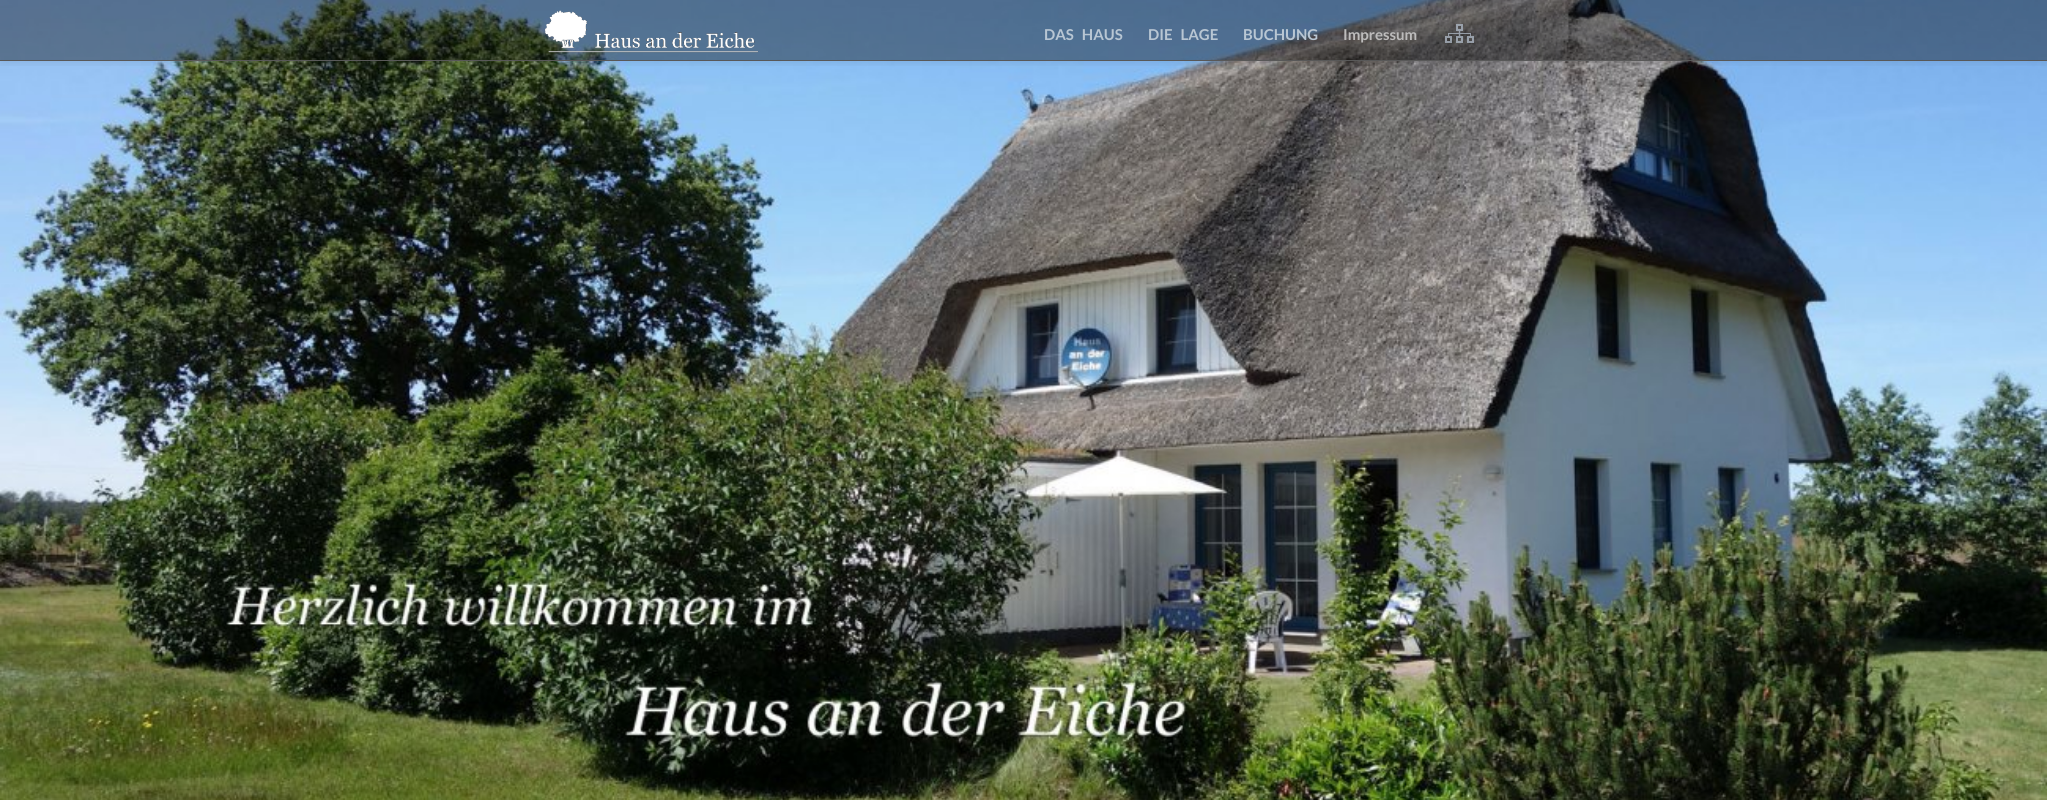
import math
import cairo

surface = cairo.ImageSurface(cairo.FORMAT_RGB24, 2047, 800)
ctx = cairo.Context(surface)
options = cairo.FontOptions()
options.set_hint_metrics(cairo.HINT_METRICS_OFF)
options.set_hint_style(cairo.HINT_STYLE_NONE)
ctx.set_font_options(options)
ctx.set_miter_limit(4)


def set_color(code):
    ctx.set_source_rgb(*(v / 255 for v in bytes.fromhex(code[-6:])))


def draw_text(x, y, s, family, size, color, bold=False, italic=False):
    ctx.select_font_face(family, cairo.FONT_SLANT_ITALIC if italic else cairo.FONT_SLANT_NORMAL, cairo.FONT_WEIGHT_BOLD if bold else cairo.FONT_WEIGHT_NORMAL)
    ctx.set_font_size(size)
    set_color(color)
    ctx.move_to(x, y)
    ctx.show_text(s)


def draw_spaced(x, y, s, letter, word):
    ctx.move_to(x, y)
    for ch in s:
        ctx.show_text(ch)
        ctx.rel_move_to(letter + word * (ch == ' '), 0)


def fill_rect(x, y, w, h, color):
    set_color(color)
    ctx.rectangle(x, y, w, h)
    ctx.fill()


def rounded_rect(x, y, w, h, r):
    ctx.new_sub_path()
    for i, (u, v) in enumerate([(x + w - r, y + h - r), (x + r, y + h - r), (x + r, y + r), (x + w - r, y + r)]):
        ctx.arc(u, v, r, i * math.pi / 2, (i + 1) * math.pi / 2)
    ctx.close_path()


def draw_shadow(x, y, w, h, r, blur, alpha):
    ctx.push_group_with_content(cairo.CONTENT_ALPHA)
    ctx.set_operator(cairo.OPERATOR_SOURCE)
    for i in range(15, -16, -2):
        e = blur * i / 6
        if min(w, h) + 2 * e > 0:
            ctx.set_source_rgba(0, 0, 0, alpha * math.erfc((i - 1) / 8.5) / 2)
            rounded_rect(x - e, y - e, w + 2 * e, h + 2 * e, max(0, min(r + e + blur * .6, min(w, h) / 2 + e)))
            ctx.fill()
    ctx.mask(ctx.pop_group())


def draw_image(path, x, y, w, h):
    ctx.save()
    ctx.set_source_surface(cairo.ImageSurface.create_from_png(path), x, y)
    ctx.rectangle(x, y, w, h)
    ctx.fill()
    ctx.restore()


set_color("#ffffff")
ctx.paint()
draw_image("assets/img1.png", 0, 0, 2047, 800)
ctx.save()
ctx.rectangle(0, 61, 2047, 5)
ctx.clip()
set_color("#000000")
draw_shadow(0, 1, 2047, 61, 0, 5, 0.1)
ctx.restore()
ctx.set_source_rgba(0, 0, 0, 0.4)
ctx.rectangle(0, 0, 2047, 60)
ctx.fill()
fill_rect(0, 60, 2047, 1, "#585858")
draw_image("assets/img2.png", 544, 10, 215, 43)
ctx.select_font_face("Lato", cairo.FONT_SLANT_NORMAL, cairo.FONT_WEIGHT_BOLD)
ctx.set_font_size(15)
set_color("#b8c6d3")
draw_spaced(1044, 40, "DAS HAUS", 0, 5)
draw_spaced(1148, 40, "DIE LAGE", 0, 5)
draw_text(1243, 40, "BUCHUNG", "Lato", 15, "#b8c6d3", bold=True)
draw_text(1343, 40, "Impressum", "Lato", 15, "#bdbcbc", bold=True)
draw_image("assets/img3.png", 1445, 24, 29, 19)
surface.write_to_png("output.png")
